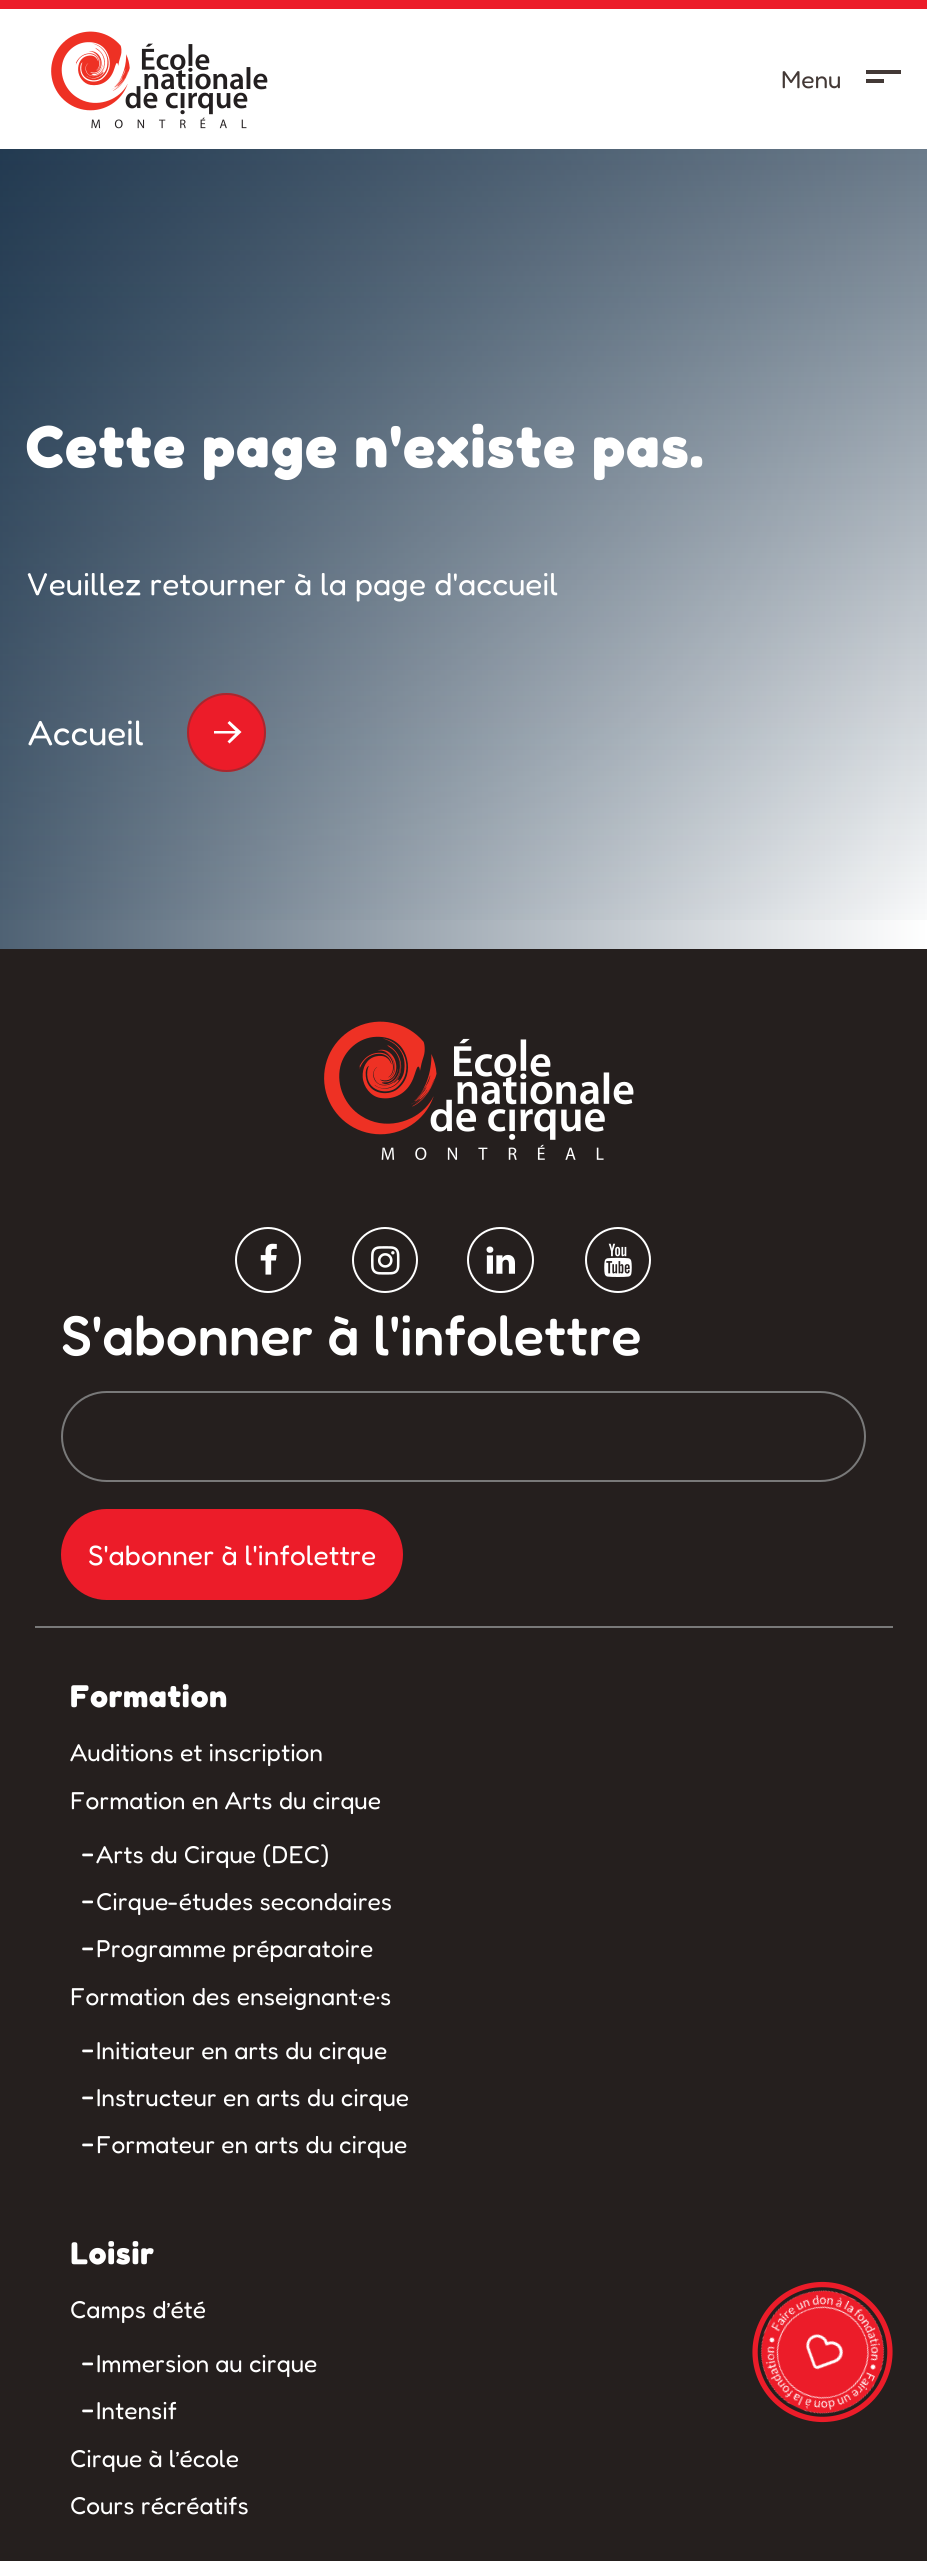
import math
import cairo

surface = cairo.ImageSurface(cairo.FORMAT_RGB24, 927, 2561)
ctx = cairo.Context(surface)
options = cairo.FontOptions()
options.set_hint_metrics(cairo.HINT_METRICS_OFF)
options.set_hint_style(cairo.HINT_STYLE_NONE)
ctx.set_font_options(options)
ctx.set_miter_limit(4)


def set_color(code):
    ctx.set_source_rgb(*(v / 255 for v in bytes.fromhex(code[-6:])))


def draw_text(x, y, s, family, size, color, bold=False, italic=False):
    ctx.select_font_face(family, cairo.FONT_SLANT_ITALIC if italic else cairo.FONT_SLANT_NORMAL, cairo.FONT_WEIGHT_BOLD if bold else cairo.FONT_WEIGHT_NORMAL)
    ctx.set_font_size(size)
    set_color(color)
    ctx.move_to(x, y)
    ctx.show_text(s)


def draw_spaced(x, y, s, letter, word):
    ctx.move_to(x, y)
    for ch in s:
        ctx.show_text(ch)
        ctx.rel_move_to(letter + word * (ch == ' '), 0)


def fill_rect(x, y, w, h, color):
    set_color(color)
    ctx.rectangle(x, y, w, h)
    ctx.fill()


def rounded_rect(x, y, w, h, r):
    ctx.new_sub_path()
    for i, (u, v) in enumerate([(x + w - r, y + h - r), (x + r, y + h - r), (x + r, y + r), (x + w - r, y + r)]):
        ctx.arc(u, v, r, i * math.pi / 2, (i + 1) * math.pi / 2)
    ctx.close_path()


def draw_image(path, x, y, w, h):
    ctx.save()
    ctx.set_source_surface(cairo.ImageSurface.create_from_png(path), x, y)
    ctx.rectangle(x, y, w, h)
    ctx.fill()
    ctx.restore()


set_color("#251f1e")
ctx.paint()
fill_rect(0, 9, 927, 140, "#ffffff")
fill_rect(0, 0, 927, 9, "#ec1c29")
draw_image("assets/img1.png", 51, 31, 217, 98)
draw_text(781, 88, "Menu", "Fredoka", 24.5, "#433936")
fill_rect(866, 70, 35, 4, "#433936")
fill_rect(866, 79, 18, 4, "#433936")
gradient = cairo.LinearGradient(0, 474, 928, 474)
gradient.add_color_stop_rgba(0, 0.31, 0.384, 0.455, 1)
gradient.add_color_stop_rgba(1, 1, 1, 1, 1)
ctx.set_source(gradient)
ctx.rectangle(0, 149, 927, 800)
ctx.fill()
gradient = cairo.LinearGradient(464, 0, 464, 949)
gradient.add_color_stop_rgba(0, 0.012, 0.118, 0.22, 0.7)
gradient.add_color_stop_rgba(1, 0.012, 0.118, 0.22, 0)
ctx.set_source(gradient)
ctx.rectangle(0, 149, 927, 771)
ctx.fill()
ctx.select_font_face("Fredoka", cairo.FONT_SLANT_NORMAL, cairo.FONT_WEIGHT_BOLD)
ctx.set_font_size(59.4)
set_color("#ffffff")
draw_spaced(26, 467, "Cette page n'existe pas.", 1.75, 0)
draw_text(26, 595, "Veuillez retourner à la page d'accueil", "Fredoka", 31.5, "#ffffff")
draw_text(28, 745, "Accueil", "Fredoka", 35, "#ffffff")
set_color("#ec1c29")
ctx.new_path()
ctx.arc(226.5, 732.5, 39.5, 0, 2 * math.pi)
ctx.fill()
ctx.save()
ctx.rectangle(214, 721, 28, 23)
ctx.clip()
set_color("#ffffff")
ctx.new_path()
ctx.move_to(213.5, 733.5)
ctx.line_to(235.5, 733.5)
ctx.line_to(227.5, 741.5)
ctx.line_to(229.5, 743.5)
ctx.line_to(241.5, 732)
ctx.line_to(229.5, 721)
ctx.line_to(227.5, 723)
ctx.line_to(235.5, 731)
ctx.line_to(213.5, 731)
ctx.close_path()
ctx.fill()
ctx.restore()
ctx.arc(226.5, 732.5, 38.5, 0, 2 * math.pi)
ctx.set_source_rgba(0.263, 0.224, 0.212, 0.4)
ctx.stroke()
fill_rect(35, 1626, 858, 2, "#797979")
draw_image("assets/img2.png", 324, 1021, 310, 139)
ctx.arc(268, 1260, 32, 0, 2 * math.pi)
set_color("#ffffff")
ctx.stroke()
draw_image("assets/img3.png", 260, 1243, 17, 32)
ctx.arc(385, 1260, 32, 0, 2 * math.pi)
ctx.stroke()
draw_image("assets/img4.png", 371, 1246, 29, 29)
rounded_rect(468, 1228, 65, 64, 32)
ctx.stroke()
draw_image("assets/img5.png", 486, 1246, 29, 28)
ctx.arc(618, 1260, 32, 0, 2 * math.pi)
ctx.stroke()
draw_image("assets/img6.png", 604, 1243, 28, 34)
draw_text(61, 1355, "S'abonner à l'infolettre", "Fredoka Medium", 56, "#ffffff")
rounded_rect(62, 1392, 803, 89, 44.5)
set_color("#797979")
ctx.stroke()
set_color("#ec1c29")
rounded_rect(61, 1509, 342, 91, 45.5)
ctx.fill()
draw_text(88, 1565, "S'abonner à l'infolettre", "Fredoka", 28, "#ffffff")
ctx.select_font_face("Fredoka", cairo.FONT_SLANT_NORMAL, cairo.FONT_WEIGHT_BOLD)
ctx.set_font_size(31.5)
draw_spaced(70, 1707, "Formation", 0.9, 0)
draw_text(70, 1761, "Auditions et inscription", "Fredoka", 24.5, "#ffffff")
draw_text(70, 1809, "Formation en Arts du cirque", "Fredoka", 24.5, "#ffffff")
draw_text(82, 1863, "-", "Fredoka", 31.5, "#ffffff")
draw_text(96, 1863, "Arts du Cirque (DEC)", "Fredoka", 24.5, "#ffffff")
draw_text(82, 1910, "-", "Fredoka", 31.5, "#ffffff")
draw_text(96, 1910, "Cirque-études secondaires", "Fredoka", 24.5, "#ffffff")
draw_text(82, 1957, "-", "Fredoka", 31.5, "#ffffff")
draw_text(96, 1957, "Programme préparatoire", "Fredoka", 24.5, "#ffffff")
draw_text(70, 2005, "Formation des enseignant·e·s", "Fredoka", 24.5, "#ffffff")
draw_text(82, 2059, "-", "Fredoka", 31.5, "#ffffff")
draw_text(96, 2059, "Initiateur en arts du cirque", "Fredoka", 24.5, "#ffffff")
draw_text(82, 2106, "-", "Fredoka", 31.5, "#ffffff")
draw_text(96, 2106, "Instructeur en arts du cirque", "Fredoka", 24.5, "#ffffff")
draw_text(82, 2153, "-", "Fredoka", 31.5, "#ffffff")
draw_text(96, 2153, "Formateur en arts du cirque", "Fredoka", 24.5, "#ffffff")
ctx.select_font_face("Fredoka", cairo.FONT_SLANT_NORMAL, cairo.FONT_WEIGHT_BOLD)
ctx.set_font_size(31.5)
draw_spaced(70, 2264, "Loisir", 0.9, 0)
draw_text(70, 2318, "Camps d’été", "Fredoka", 24.5, "#ffffff")
draw_text(82, 2372, "-", "Fredoka", 31.5, "#ffffff")
draw_text(96, 2372, "Immersion au cirque", "Fredoka", 24.5, "#ffffff")
draw_text(82, 2419, "-", "Fredoka", 31.5, "#ffffff")
draw_text(96, 2419, "Intensif", "Fredoka", 24.5, "#ffffff")
draw_text(70, 2467, "Cirque à l’école", "Fredoka", 24.5, "#ffffff")
draw_text(70, 2514, "Cours récréatifs", "Fredoka", 24.5, "#ffffff")
ctx.new_path()
ctx.move_to(851, 2291)
ctx.curve_to(884.5, 2306.5, 899.5, 2346.5, 883.5, 2380.5)
ctx.curve_to(868, 2414, 828, 2429, 794, 2413)
ctx.curve_to(760.5, 2397.5, 745.5, 2357.5, 761.5, 2323.5)
ctx.curve_to(777, 2290, 817, 2275, 851, 2291)
ctx.close_path()
set_color("#ec1c29")
ctx.set_line_width(5.3)
ctx.stroke()
draw_image("assets/img7.png", 760, 2290, 125, 124)
surface.write_to_png("output.png")
